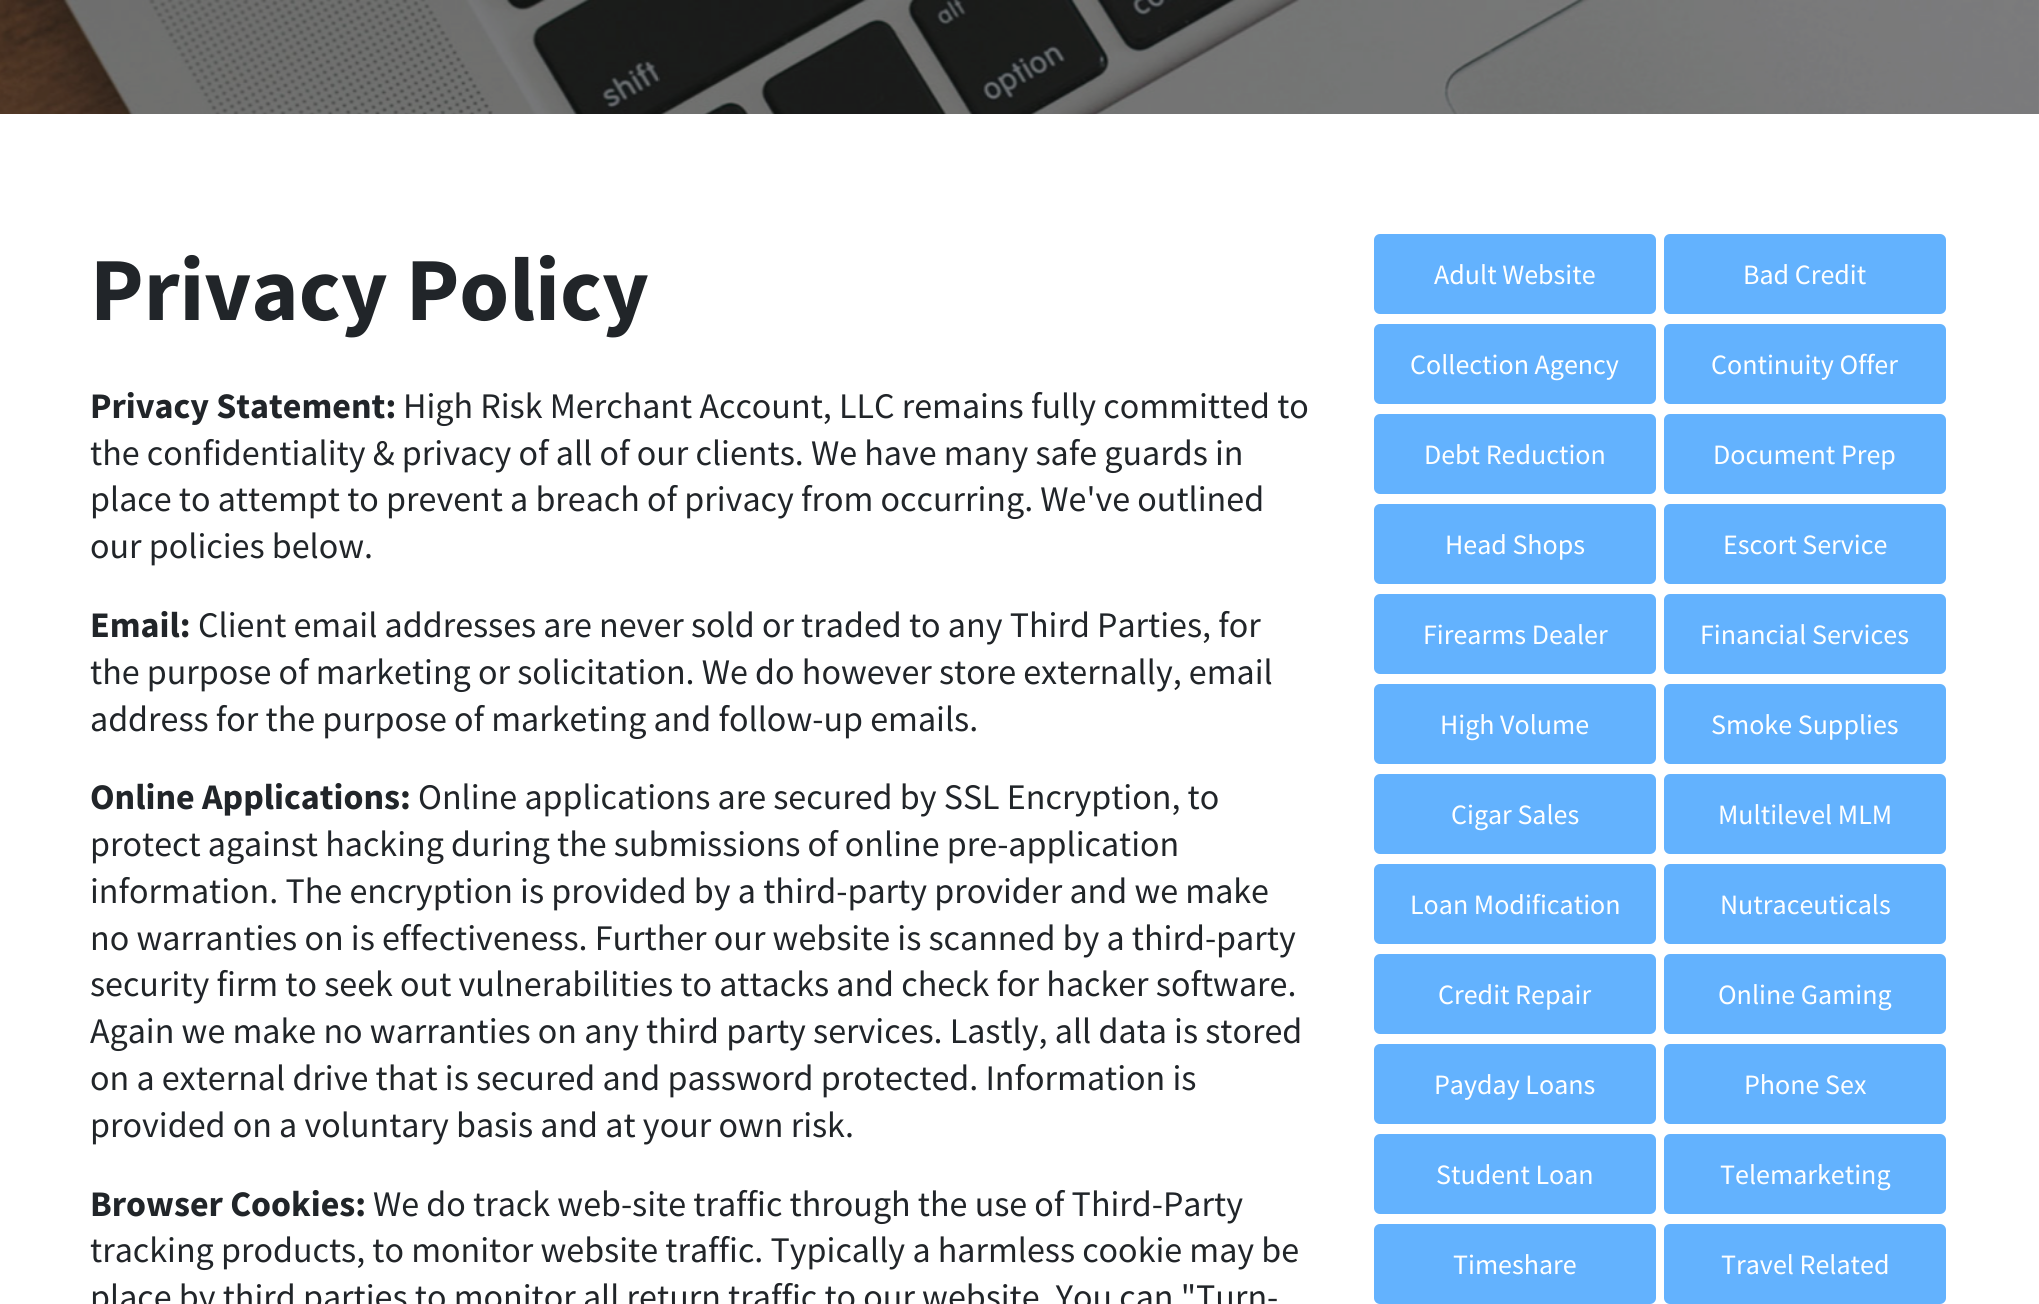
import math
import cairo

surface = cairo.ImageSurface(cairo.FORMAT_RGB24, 2039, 1304)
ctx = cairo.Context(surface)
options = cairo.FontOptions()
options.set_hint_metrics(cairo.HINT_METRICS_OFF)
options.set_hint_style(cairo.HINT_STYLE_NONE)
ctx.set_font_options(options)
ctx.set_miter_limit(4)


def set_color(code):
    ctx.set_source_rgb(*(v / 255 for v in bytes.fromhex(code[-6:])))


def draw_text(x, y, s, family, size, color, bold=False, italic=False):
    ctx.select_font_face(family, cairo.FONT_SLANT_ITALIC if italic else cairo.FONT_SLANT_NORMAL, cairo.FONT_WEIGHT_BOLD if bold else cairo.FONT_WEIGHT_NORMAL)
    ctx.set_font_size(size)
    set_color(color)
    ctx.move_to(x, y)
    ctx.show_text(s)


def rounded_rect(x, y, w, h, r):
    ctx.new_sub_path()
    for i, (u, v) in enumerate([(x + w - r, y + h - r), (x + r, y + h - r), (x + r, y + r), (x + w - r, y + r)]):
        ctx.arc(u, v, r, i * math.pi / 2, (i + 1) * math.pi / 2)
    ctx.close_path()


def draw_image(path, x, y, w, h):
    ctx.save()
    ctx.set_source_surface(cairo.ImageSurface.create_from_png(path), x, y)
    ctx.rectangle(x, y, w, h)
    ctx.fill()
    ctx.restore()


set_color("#ffffff")
ctx.paint()
draw_image("assets/img1.png", 0, 0, 2039, 114)
draw_text(90, 320, "Privacy Policy", "Source Sans Pro", 90, "#212529", bold=True)
draw_text(90, 418, "Privacy Statement:", "Source Sans Pro", 36, "#212529", bold=True)
draw_text(403, 418, "High Risk Merchant Account, LLC remains fully committed to", "Source Sans Pro", 36, "#212529")
draw_text(90, 465, "the confidentiality & privacy of all of our clients. We have many safe guards in", "Source Sans Pro", 36, "#212529")
draw_text(90, 511, "place to attempt to prevent a breach of privacy from occurring. We've outlined", "Source Sans Pro", 36, "#212529")
draw_text(90, 558, "our policies below.", "Source Sans Pro", 36, "#212529")
draw_text(90, 637, "Email:", "Source Sans Pro", 36, "#212529", bold=True)
draw_text(198, 637, "Client email addresses are never sold or traded to any Third Parties, for", "Source Sans Pro", 36, "#212529")
draw_text(90, 684, "the purpose of marketing or solicitation. We do however store externally, email", "Source Sans Pro", 36, "#212529")
draw_text(90, 731, "address for the purpose of marketing and follow-up emails.", "Source Sans Pro", 36, "#212529")
draw_text(90, 809, "Online Applications:", "Source Sans Pro", 36, "#212529", bold=True)
draw_text(418, 809, "Online applications are secured by SSL Encryption, to", "Source Sans Pro", 36, "#212529")
draw_text(90, 856, "protect against hacking during the submissions of online pre-application", "Source Sans Pro", 36, "#212529")
draw_text(90, 903, "information. The encryption is provided by a third-party provider and we make", "Source Sans Pro", 36, "#212529")
draw_text(90, 950, "no warranties on is effectiveness. Further our website is scanned by a third-party", "Source Sans Pro", 36, "#212529")
draw_text(90, 996, "security firm to seek out vulnerabilities to attacks and check for hacker software.", "Source Sans Pro", 36, "#212529")
draw_text(90, 1043, "Again we make no warranties on any third party services. Lastly, all data is stored", "Source Sans Pro", 36, "#212529")
draw_text(90, 1090, "on a external drive that is secured and password protected. Information is", "Source Sans Pro", 36, "#212529")
draw_text(90, 1137, "provided on a voluntary basis and at your own risk.", "Source Sans Pro", 36, "#212529")
draw_text(90, 1216, "Browser Cookies:", "Source Sans Pro", 36, "#212529", bold=True)
draw_text(373, 1216, "We do track web-site traffic through the use of Third-Party", "Source Sans Pro", 36, "#212529")
draw_text(90, 1262, "tracking products, to monitor website traffic. Typically a harmless cookie may be", "Source Sans Pro", 36, "#212529")
draw_text(90, 1309, "place by third parties to monitor all return traffic to our website. You can \"Turn-", "Source Sans Pro", 36, "#212529")
set_color("#63b2fe")
rounded_rect(1375, 235, 280, 78, 5)
ctx.fill_preserve()
ctx.stroke()
draw_text(1434, 284, "Adult Website", "Source Sans Pro", 28, "#ffffff")
set_color("#63b2fe")
rounded_rect(1665, 235, 280, 78, 5)
ctx.fill_preserve()
ctx.stroke()
draw_text(1743, 284, "Bad Credit", "Source Sans Pro", 28, "#ffffff")
set_color("#63b2fe")
rounded_rect(1375, 325, 280, 78, 5)
ctx.fill_preserve()
ctx.stroke()
draw_text(1410, 374, "Collection Agency", "Source Sans Pro", 28, "#ffffff")
set_color("#63b2fe")
rounded_rect(1665, 325, 280, 78, 5)
ctx.fill_preserve()
ctx.stroke()
draw_text(1711, 374, "Continuity Offer", "Source Sans Pro", 28, "#ffffff")
set_color("#63b2fe")
rounded_rect(1375, 415, 280, 78, 5)
ctx.fill_preserve()
ctx.stroke()
draw_text(1424, 464, "Debt Reduction", "Source Sans Pro", 28, "#ffffff")
set_color("#63b2fe")
rounded_rect(1665, 415, 280, 78, 5)
ctx.fill_preserve()
ctx.stroke()
draw_text(1713, 464, "Document Prep", "Source Sans Pro", 28, "#ffffff")
set_color("#63b2fe")
rounded_rect(1375, 505, 280, 78, 5)
ctx.fill_preserve()
ctx.stroke()
draw_text(1445, 554, "Head Shops", "Source Sans Pro", 28, "#ffffff")
set_color("#63b2fe")
rounded_rect(1665, 505, 280, 78, 5)
ctx.fill_preserve()
ctx.stroke()
draw_text(1723, 554, "Escort Service", "Source Sans Pro", 28, "#ffffff")
set_color("#63b2fe")
rounded_rect(1375, 595, 280, 78, 5)
ctx.fill_preserve()
ctx.stroke()
draw_text(1423, 644, "Firearms Dealer", "Source Sans Pro", 28, "#ffffff")
set_color("#63b2fe")
rounded_rect(1665, 595, 280, 78, 5)
ctx.fill_preserve()
ctx.stroke()
draw_text(1700, 644, "Financial Services", "Source Sans Pro", 28, "#ffffff")
set_color("#63b2fe")
rounded_rect(1375, 685, 280, 78, 5)
ctx.fill_preserve()
ctx.stroke()
draw_text(1440, 734, "High Volume", "Source Sans Pro", 28, "#ffffff")
set_color("#63b2fe")
rounded_rect(1665, 685, 280, 78, 5)
ctx.fill_preserve()
ctx.stroke()
draw_text(1711, 734, "Smoke Supplies", "Source Sans Pro", 28, "#ffffff")
set_color("#63b2fe")
rounded_rect(1375, 775, 280, 78, 5)
ctx.fill_preserve()
ctx.stroke()
draw_text(1451, 824, "Cigar Sales", "Source Sans Pro", 28, "#ffffff")
set_color("#63b2fe")
rounded_rect(1665, 775, 280, 78, 5)
ctx.fill_preserve()
ctx.stroke()
draw_text(1718, 824, "Multilevel MLM", "Source Sans Pro", 28, "#ffffff")
set_color("#63b2fe")
rounded_rect(1375, 865, 280, 78, 5)
ctx.fill_preserve()
ctx.stroke()
draw_text(1410, 914, "Loan Modification", "Source Sans Pro", 28, "#ffffff")
set_color("#63b2fe")
rounded_rect(1665, 865, 280, 78, 5)
ctx.fill_preserve()
ctx.stroke()
draw_text(1720, 914, "Nutraceuticals", "Source Sans Pro", 28, "#ffffff")
set_color("#63b2fe")
rounded_rect(1375, 955, 280, 78, 5)
ctx.fill_preserve()
ctx.stroke()
draw_text(1438, 1004, "Credit Repair", "Source Sans Pro", 28, "#ffffff")
set_color("#63b2fe")
rounded_rect(1665, 955, 280, 78, 5)
ctx.fill_preserve()
ctx.stroke()
draw_text(1718, 1004, "Online Gaming", "Source Sans Pro", 28, "#ffffff")
set_color("#63b2fe")
rounded_rect(1375, 1045, 280, 78, 5)
ctx.fill_preserve()
ctx.stroke()
draw_text(1434, 1094, "Payday Loans", "Source Sans Pro", 28, "#ffffff")
set_color("#63b2fe")
rounded_rect(1665, 1045, 280, 78, 5)
ctx.fill_preserve()
ctx.stroke()
draw_text(1744, 1094, "Phone Sex", "Source Sans Pro", 28, "#ffffff")
set_color("#63b2fe")
rounded_rect(1375, 1135, 280, 78, 5)
ctx.fill_preserve()
ctx.stroke()
draw_text(1436, 1184, "Student Loan", "Source Sans Pro", 28, "#ffffff")
set_color("#63b2fe")
rounded_rect(1665, 1135, 280, 78, 5)
ctx.fill_preserve()
ctx.stroke()
draw_text(1720, 1184, "Telemarketing", "Source Sans Pro", 28, "#ffffff")
set_color("#63b2fe")
rounded_rect(1375, 1225, 280, 78, 5)
ctx.fill_preserve()
ctx.stroke()
draw_text(1453, 1274, "Timeshare", "Source Sans Pro", 28, "#ffffff")
set_color("#63b2fe")
rounded_rect(1665, 1225, 280, 78, 5)
ctx.fill_preserve()
ctx.stroke()
draw_text(1721, 1274, "Travel Related", "Source Sans Pro", 28, "#ffffff")
surface.write_to_png("output.png")
